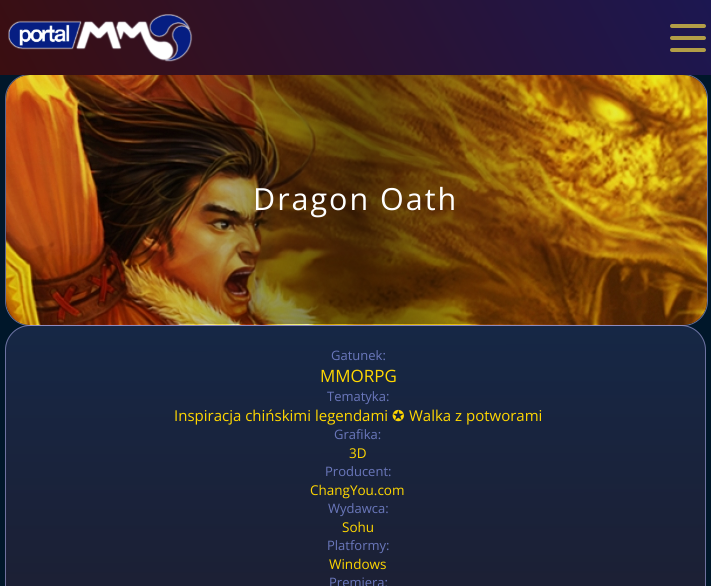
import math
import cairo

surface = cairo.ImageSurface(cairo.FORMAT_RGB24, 711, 586)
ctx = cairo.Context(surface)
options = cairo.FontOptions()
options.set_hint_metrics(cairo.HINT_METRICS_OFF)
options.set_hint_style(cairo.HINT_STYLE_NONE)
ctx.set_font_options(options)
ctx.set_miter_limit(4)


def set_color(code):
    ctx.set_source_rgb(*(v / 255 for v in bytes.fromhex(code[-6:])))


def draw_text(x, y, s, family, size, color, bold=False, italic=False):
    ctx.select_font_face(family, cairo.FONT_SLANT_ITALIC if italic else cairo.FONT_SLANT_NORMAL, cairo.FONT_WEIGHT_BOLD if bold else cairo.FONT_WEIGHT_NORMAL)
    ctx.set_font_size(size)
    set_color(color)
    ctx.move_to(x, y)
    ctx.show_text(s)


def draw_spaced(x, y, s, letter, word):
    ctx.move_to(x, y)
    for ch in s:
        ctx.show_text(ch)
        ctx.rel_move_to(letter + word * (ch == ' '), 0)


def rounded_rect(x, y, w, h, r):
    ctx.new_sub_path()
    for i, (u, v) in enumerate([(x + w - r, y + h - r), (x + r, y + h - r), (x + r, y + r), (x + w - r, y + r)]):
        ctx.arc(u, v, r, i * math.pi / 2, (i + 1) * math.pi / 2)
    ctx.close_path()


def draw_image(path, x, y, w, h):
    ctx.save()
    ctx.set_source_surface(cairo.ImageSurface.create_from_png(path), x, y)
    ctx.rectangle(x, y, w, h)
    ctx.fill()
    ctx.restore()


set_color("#00172a")
ctx.paint()
ctx.save()
rounded_rect(5, 325, 701, 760, 25)
ctx.clip()
gradient = cairo.LinearGradient(355, -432, 356, 326)
gradient.add_color_stop_rgba(0, 0.086, 0.153, 0.271, 1)
gradient.add_color_stop_rgba(1, 0.153, 0.071, 0.082, 1)
ctx.set_source(gradient)
ctx.rectangle(23, 325, 665, 1)
ctx.fill()
gradient = cairo.LinearGradient(355, 326, 356, 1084)
gradient.add_color_stop_rgba(0, 0.086, 0.153, 0.271, 1)
gradient.add_color_stop_rgba(1, 0.153, 0.071, 0.082, 1)
ctx.set_source(gradient)
ctx.rectangle(5, 326, 701, 260)
ctx.fill()
ctx.restore()
rounded_rect(5.5, 325.5, 700, 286, 24.5)
ctx.set_source_rgba(0.612, 0.612, 0.835, 0.65)
ctx.set_line_width(1)
ctx.stroke()
rounded_rect(5.5, 74.5, 702, 251, 24.5)
ctx.stroke()
draw_image("assets/img2.png", 6, 75, 701, 250)
gradient = cairo.RadialGradient(0, 0, 0, 0, 0, 1)
gradient.set_matrix(cairo.Matrix(1 / 701, 0, 0, 1 / 2250, -1 * 356 / 701, -1 * 199 / 2250))
gradient.add_color_stop_rgba(0, 0, 0, 0, 0.6)
gradient.add_color_stop_rgba(0.3, 0, 0, 0, 0.1)
gradient.add_color_stop_rgba(1, 0, 0, 0, 0)
ctx.set_source(gradient)
rounded_rect(5, 74, 701, 250, 25)
ctx.fill()
gradient = cairo.LinearGradient(643, -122, 68, 197)
gradient.add_color_stop_rgba(0, 0.11, 0.09, 0.318, 1)
gradient.add_color_stop_rgba(1, 0.231, 0.055, 0.063, 1)
ctx.set_source(gradient)
ctx.rectangle(0, 0, 711, 75)
ctx.fill()
draw_image("assets/img1.png", 8, 14, 185, 48)
ctx.set_source_rgba(0.914, 0.816, 0.271, 0.73)
rounded_rect(670, 24, 36, 4, 2)
ctx.fill()
rounded_rect(670, 36, 36, 4, 2)
ctx.fill()
rounded_rect(670, 48, 36, 4, 2)
ctx.fill()
ctx.select_font_face("Open Sans")
ctx.set_font_size(30.5)
set_color("#ffffff")
draw_spaced(253, 210, "Dragon Oath", 2, 0)
draw_text(331, 360, "Gatunek:", "Open Sans", 13, "#6a77bb")
draw_text(320, 382, "MMORPG", "Open Sans", 17, "#ffd700")
draw_text(327, 401, "Tematyka:", "Open Sans", 13, "#6a77bb")
draw_text(174, 421, "Inspiracja chińskimi legendami", "Open Sans", 15, "#ffd700")
draw_text(392, 421, "✪", "DejaVu Sans", 15, "#ffd700")
draw_text(409, 421, "Walka z potworami", "Open Sans", 15, "#ffd700")
draw_text(334, 439, "Grafika:", "Open Sans", 13, "#6a77bb")
draw_text(349, 458, "3D", "Open Sans", 13.5, "#ffd700")
draw_text(325, 476, "Producent:", "Open Sans", 13, "#6a77bb")
draw_text(310, 495, "ChangYou.com", "Open Sans", 13.5, "#ffd700")
draw_text(328, 513, "Wydawca:", "Open Sans", 13, "#6a77bb")
draw_text(342, 532, "Sohu", "Open Sans", 13.5, "#ffd700")
draw_text(327, 550, "Platformy:", "Open Sans", 13, "#6a77bb")
draw_text(329, 569, "Windows", "Open Sans", 13.5, "#ffd700")
draw_text(329, 587, "Premiera:", "Open Sans", 13, "#6a77bb")
surface.write_to_png("output.png")
